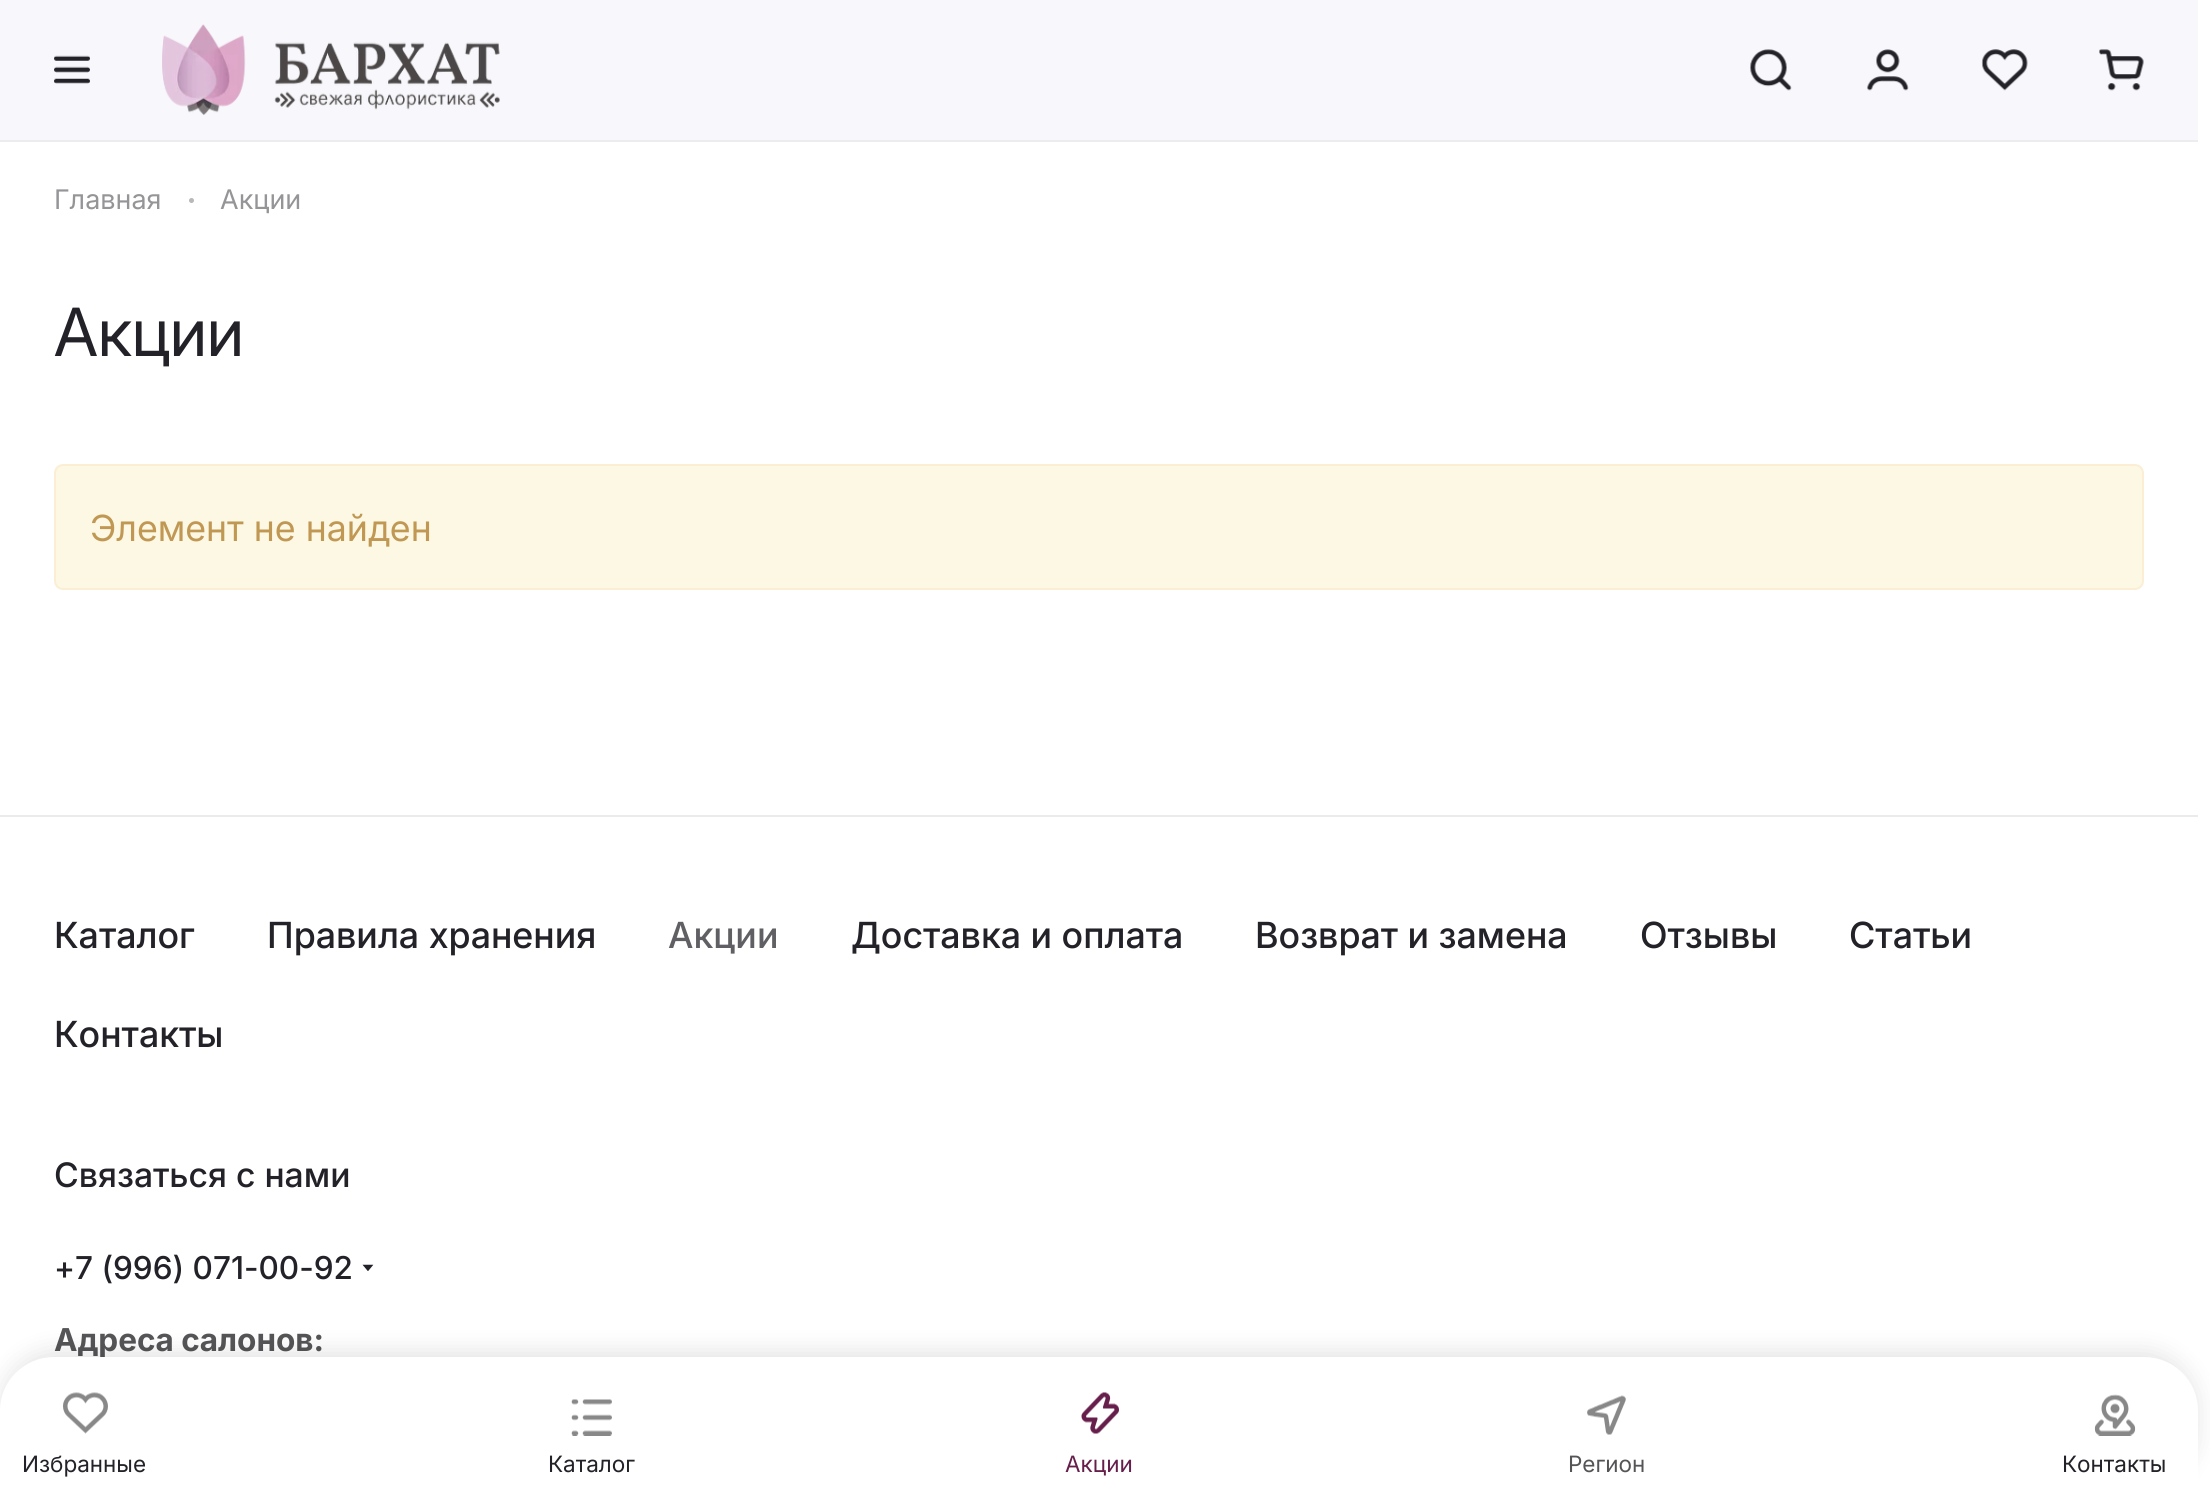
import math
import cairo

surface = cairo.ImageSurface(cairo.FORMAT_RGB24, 2210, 1493)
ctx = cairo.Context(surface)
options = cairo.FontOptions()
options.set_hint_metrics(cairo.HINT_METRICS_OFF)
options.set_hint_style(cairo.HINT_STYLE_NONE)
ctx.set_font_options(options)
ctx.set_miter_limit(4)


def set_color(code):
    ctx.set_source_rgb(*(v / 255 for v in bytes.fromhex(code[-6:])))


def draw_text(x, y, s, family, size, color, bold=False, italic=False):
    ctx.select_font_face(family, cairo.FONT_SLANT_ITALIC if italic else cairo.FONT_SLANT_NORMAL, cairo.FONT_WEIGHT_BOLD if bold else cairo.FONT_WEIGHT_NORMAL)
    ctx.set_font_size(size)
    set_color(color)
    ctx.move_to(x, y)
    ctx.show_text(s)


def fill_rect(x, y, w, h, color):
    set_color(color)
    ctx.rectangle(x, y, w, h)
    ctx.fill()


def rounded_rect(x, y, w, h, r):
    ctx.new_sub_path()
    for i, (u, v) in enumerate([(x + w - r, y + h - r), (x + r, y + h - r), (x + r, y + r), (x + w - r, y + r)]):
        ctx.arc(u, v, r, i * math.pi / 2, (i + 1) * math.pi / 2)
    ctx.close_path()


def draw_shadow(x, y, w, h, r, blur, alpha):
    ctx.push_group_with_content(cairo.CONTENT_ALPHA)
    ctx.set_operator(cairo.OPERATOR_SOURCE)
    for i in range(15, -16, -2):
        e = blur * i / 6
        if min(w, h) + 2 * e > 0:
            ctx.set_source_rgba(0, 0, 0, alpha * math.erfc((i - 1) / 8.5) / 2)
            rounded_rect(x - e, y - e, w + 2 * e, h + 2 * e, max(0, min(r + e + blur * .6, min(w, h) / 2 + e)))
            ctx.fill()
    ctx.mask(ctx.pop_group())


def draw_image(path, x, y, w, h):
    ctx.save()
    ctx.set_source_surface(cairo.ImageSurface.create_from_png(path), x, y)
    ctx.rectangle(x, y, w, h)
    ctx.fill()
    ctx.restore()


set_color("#ffffff")
ctx.paint()
fill_rect(0, 140, 2198, 2, "#ebecef")
fill_rect(0, 0, 2198, 140, "#f8f8fc")
draw_image("assets/img1.png", 54, 55, 36, 29)
draw_image("assets/img2.png", 162, 24, 338, 91)
draw_image("assets/img3.png", 1750, 49, 42, 42)
draw_image("assets/img4.png", 1867, 49, 42, 42)
draw_image("assets/img5.png", 1981, 49, 47, 42)
draw_image("assets/img6.png", 2099, 49, 45, 42)
draw_text(54, 209, "Главная", "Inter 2", 27, "#959598")
set_color("#b8b8b9")
ctx.new_path()
ctx.arc(191.5, 200.5, 2.5, 0, 2 * math.pi)
ctx.fill()
draw_text(220, 209, "Акции", "Inter 2", 27, "#959598")
draw_text(54, 356, "Акции", "Inter", 66.5, "#222228")
set_color("#fcf8e3")
rounded_rect(55, 465, 2088, 124, 8)
ctx.fill_preserve()
set_color("#fbeed5")
ctx.stroke()
draw_text(90, 541, "Элемент не найден", "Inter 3", 36, "#c09853")
fill_rect(0, 815, 2198, 2, "#ebebee")
draw_text(54, 948, "Каталог", "Inter Medium", 36, "#222228")
draw_text(267, 948, "Правила хранения", "Inter Medium", 36, "#222228")
draw_text(668, 948, "Акции", "Inter Medium", 36, "#606064")
draw_text(851, 948, "Доставка и оплата", "Inter Medium", 36, "#222228")
draw_text(1255, 948, "Возврат и замена", "Inter Medium", 36, "#222228")
draw_text(1640, 948, "Отзывы", "Inter Medium", 36, "#222228")
draw_text(1849, 948, "Статьи", "Inter Medium", 36, "#222228")
draw_text(54, 1047, "Контакты", "Inter Medium", 36, "#222228")
draw_text(54, 1187, "Связаться с нами", "Inter 2 Medium", 33.75, "#222228")
draw_text(54, 1279, "+7 (996) 071-00-92", "Inter 2 Medium", 31.5, "#222228")
draw_image("assets/img7.png", 362, 1264, 12, 7)
draw_text(54, 1351, "Адреса салонов:", "Inter", 31.5, "#555558", bold=True)
set_color("#000000")
draw_shadow(0, 1350, 2198, 137, 54, 11, 0.1)
set_color("#ffffff")
ctx.new_path()
ctx.move_to(54, 1357)
ctx.line_to(2144, 1357)
ctx.curve_to(2174, 1357, 2198, 1381, 2198, 1411)
ctx.line_to(2198, 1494)
ctx.line_to(0, 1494)
ctx.line_to(0, 1411)
ctx.curve_to(0, 1381, 24, 1357, 54, 1357)
ctx.close_path()
ctx.fill()
draw_image("assets/img8.png", 63, 1392, 45, 42)
draw_text(22, 1472, "Избранные", "Inter 2", 22.5, "#222228")
draw_image("assets/img9.png", 571, 1399, 41, 37)
draw_text(548, 1472, "Каталог", "Inter 2", 22.5, "#222228")
draw_image("assets/img10.png", 1081, 1392, 38, 42)
draw_text(1065, 1472, "Акции", "Inter 2", 22.5, "#661e4b")
draw_image("assets/img11.png", 1587, 1395, 39, 40)
draw_text(1568, 1472, "Регион", "Inter 2", 22.5, "#555558")
draw_image("assets/img12.png", 2094, 1394, 42, 42)
draw_text(2062, 1472, "Контакты", "Inter 2", 22.5, "#222228")
surface.write_to_png("output.png")
